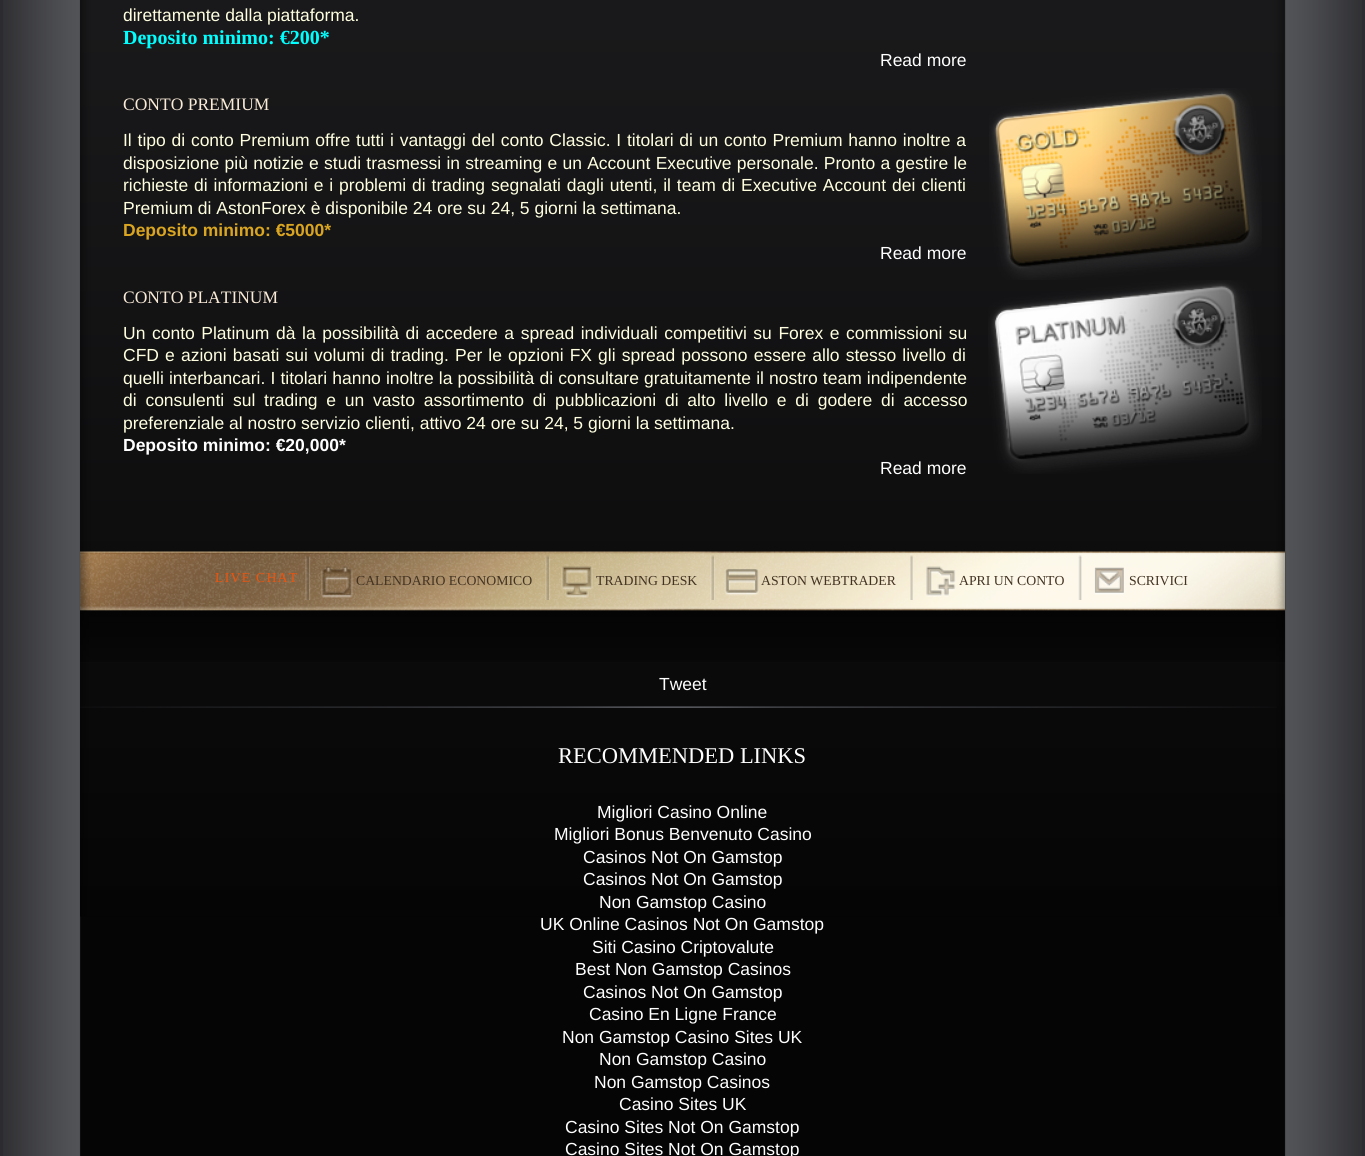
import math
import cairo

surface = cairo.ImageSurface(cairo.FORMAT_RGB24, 1365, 1156)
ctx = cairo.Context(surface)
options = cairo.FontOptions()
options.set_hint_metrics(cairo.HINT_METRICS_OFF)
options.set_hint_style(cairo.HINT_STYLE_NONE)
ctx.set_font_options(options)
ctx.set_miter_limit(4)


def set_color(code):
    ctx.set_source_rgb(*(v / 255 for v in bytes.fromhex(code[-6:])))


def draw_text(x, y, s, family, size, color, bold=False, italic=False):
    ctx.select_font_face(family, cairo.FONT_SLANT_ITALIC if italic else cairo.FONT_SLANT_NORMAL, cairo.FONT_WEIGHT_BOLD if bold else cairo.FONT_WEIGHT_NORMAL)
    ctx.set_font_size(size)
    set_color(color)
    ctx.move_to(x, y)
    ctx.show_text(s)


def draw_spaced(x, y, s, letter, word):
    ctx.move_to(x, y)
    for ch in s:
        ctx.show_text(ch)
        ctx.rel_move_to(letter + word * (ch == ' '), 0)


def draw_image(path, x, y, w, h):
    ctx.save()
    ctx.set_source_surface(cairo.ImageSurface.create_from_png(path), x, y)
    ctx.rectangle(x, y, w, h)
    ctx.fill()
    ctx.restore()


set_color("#2c2c30")
ctx.paint()
draw_image("assets/img1.png", 3, 0, 1359, 1156)
draw_image("assets/img2.png", 80, 0, 1205, 917)
draw_text(123, 21, "direttamente dalla piattaforma.", "Liberation Sans", 17.5, "#ffffe0")
draw_text(123, 44, "Deposito minimo: €200*", "Liberation Serif", 20, "#00ffff", bold=True)
draw_text(880, 66, "Read more", "Liberation Sans", 17.5, "#ffffff")
draw_text(123, 110, "CONTO PREMIUM", "Liberation Serif", 17.5, "#faebd7")
draw_image("assets/img3.png", 989, 88, 273, 192)
ctx.select_font_face("Liberation Sans")
set_color("#ffffe0")
draw_spaced(123, 146, "Il tipo di conto Premium offre tutti i vantaggi del conto Classic. I titolari di un conto Premium hanno inoltre a", 0, 0.9)
draw_spaced(123, 169, "disposizione più notizie e studi trasmessi in streaming e un Account Executive personale. Pronto a gestire le", 0, 0.4)
draw_spaced(123, 191, "richieste di informazioni e i problemi di trading segnalati dagli utenti, il team di Executive Account dei clienti", 0, 1)
draw_text(123, 214, "Premium di AstonForex è disponibile 24 ore su 24, 5 giorni la settimana.", "Liberation Sans", 17.5, "#ffffe0")
draw_text(123, 236, "Deposito minimo: €5000*", "Liberation Sans", 17.5, "#daa520", bold=True)
draw_text(880, 259, "Read more", "Liberation Sans", 17.5, "#ffffff")
draw_text(123, 303, "CONTO PLATINUM", "Liberation Serif", 17.5, "#faebd7")
draw_image("assets/img4.png", 988, 280, 274, 194)
ctx.select_font_face("Liberation Sans")
set_color("#ffffe0")
draw_spaced(123, 339, "Un conto Platinum dà la possibilità di accedere a spread individuali competitivi su Forex e commissioni su", 0, 1.7)
draw_spaced(123, 361, "CFD e azioni basati sui volumi di trading. Per le opzioni FX gli spread possono essere allo stesso livello di", 0, 1.25)
draw_spaced(123, 384, "quelli interbancari. I titolari hanno inoltre la possibilità di consultare gratuitamente il nostro team indipendente", 0, 0.25)
draw_spaced(123, 406, "di consulenti sul trading e un vasto assortimento di pubblicazioni di alto livello e di godere di accesso", 0, 3.9)
draw_text(123, 429, "preferenziale al nostro servizio clienti, attivo 24 ore su 24, 5 giorni la settimana.", "Liberation Sans", 17.5, "#ffffe0")
draw_text(123, 451, "Deposito minimo: €20,000*", "Liberation Sans", 17.5, "#ffffff", bold=True)
draw_text(880, 474, "Read more", "Liberation Sans", 17.5, "#ffffff")
draw_image("assets/img5.png", 80, 551, 1205, 111)
ctx.select_font_face("Liberation Serif")
ctx.set_font_size(13.75)
set_color("#ef540d")
draw_spaced(215, 582, "LIVE CHAT", 1.25, 0)
draw_image("assets/img6.png", 305, 556, 6, 44)
draw_image("assets/img7.png", 321, 566, 32, 32)
draw_text(356, 585, "CALENDARIO ECONOMICO", "Liberation Serif", 13.75, "#433322")
draw_image("assets/img8.png", 545, 555, 6, 45)
draw_image("assets/img9.png", 561, 566, 32, 32)
draw_text(596, 585, "TRADING DESK", "Liberation Serif", 13.75, "#433322")
draw_image("assets/img10.png", 710, 555, 5, 45)
draw_image("assets/img11.png", 724, 569, 35, 27)
draw_text(761, 585, "ASTON WEBTRADER", "Liberation Serif", 13.75, "#433322")
draw_image("assets/img12.png", 910, 555, 4, 45)
draw_image("assets/img13.png", 926, 566, 30, 31)
draw_text(959, 585, "APRI UN CONTO", "Liberation Serif", 13.75, "#433322")
draw_image("assets/img14.png", 1078, 555, 4, 45)
draw_image("assets/img15.png", 1094, 567, 31, 28)
draw_text(1129, 585, "SCRIVICI", "Liberation Serif", 13.75, "#433322")
draw_text(659, 690, "Tweet", "Liberation Sans", 17.5, "#ffffff")
draw_image("assets/img16.png", 80, 706, 1197, 2)
draw_text(558, 763, "RECOMMENDED LINKS", "Liberation Serif", 22.5, "#ffffff")
draw_text(597, 818, "Migliori Casino Online", "Liberation Sans", 17.5, "#ffffff")
draw_text(554, 840, "Migliori Bonus Benvenuto Casino", "Liberation Sans", 17.5, "#ffffff")
draw_text(583, 863, "Casinos Not On Gamstop", "Liberation Sans", 17.5, "#ffffff")
draw_text(583, 885, "Casinos Not On Gamstop", "Liberation Sans", 17.5, "#ffffff")
draw_text(599, 908, "Non Gamstop Casino", "Liberation Sans", 17.5, "#ffffff")
draw_text(540, 930, "UK Online Casinos Not On Gamstop", "Liberation Sans", 17.5, "#ffffff")
draw_text(592, 953, "Siti Casino Criptovalute", "Liberation Sans", 17.5, "#ffffff")
draw_text(575, 975, "Best Non Gamstop Casinos", "Liberation Sans", 17.5, "#ffffff")
draw_text(583, 998, "Casinos Not On Gamstop", "Liberation Sans", 17.5, "#ffffff")
draw_text(589, 1020, "Casino En Ligne France", "Liberation Sans", 17.5, "#ffffff")
draw_text(562, 1043, "Non Gamstop Casino Sites UK", "Liberation Sans", 17.5, "#ffffff")
draw_text(599, 1065, "Non Gamstop Casino", "Liberation Sans", 17.5, "#ffffff")
draw_text(594, 1088, "Non Gamstop Casinos", "Liberation Sans", 17.5, "#ffffff")
draw_text(619, 1110, "Casino Sites UK", "Liberation Sans", 17.5, "#ffffff")
draw_text(565, 1133, "Casino Sites Not On Gamstop", "Liberation Sans", 17.5, "#ffffff")
draw_text(565, 1155, "Casino Sites Not On Gamstop", "Liberation Sans", 17.5, "#ffffff")
surface.write_to_png("output.png")
